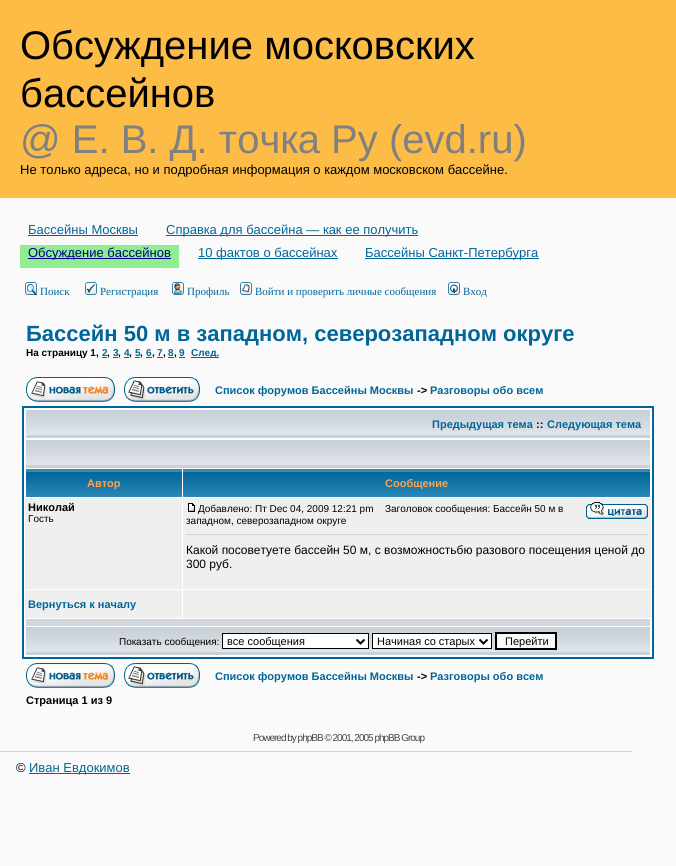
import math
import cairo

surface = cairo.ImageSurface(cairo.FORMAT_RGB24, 676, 866)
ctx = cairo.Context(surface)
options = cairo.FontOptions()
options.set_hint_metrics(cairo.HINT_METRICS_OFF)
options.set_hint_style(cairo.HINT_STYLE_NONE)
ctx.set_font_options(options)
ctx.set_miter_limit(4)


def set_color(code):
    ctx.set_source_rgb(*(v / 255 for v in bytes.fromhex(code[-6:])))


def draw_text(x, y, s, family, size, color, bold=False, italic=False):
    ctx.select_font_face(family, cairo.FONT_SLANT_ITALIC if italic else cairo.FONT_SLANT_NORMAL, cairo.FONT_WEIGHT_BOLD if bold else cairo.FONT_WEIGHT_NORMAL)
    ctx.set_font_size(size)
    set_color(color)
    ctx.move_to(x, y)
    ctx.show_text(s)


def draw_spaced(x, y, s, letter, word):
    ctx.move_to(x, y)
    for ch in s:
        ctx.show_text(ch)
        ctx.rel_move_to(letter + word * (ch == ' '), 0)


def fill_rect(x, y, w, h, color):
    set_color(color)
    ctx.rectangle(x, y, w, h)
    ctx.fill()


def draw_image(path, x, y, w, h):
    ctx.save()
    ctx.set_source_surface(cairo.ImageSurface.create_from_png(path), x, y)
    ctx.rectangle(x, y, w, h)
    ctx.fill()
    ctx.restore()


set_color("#fafafa")
ctx.paint()
fill_rect(0, 0, 676, 198, "#fcbc46")
draw_text(20, 59, "Обсуждение московских", "Liberation Sans", 40, "#000000")
draw_text(20, 107, "бассейнов", "Liberation Sans", 40, "#000000")
draw_text(20, 153, "@ Е. В. Д. точка Ру (evd.ru)", "Liberation Sans", 40, "#808080")
draw_text(20, 174, "Не только адреса, но и подробная информация о каждом московском бассейне.", "Liberation Sans", 13, "#000000")
draw_text(28, 234, "Бассейны Москвы", "Liberation Sans", 13, "#006699")
fill_rect(28, 235, 110, 1, "#006699")
fill_rect(166, 235, 252, 1, "#006699")
draw_text(166, 234, "Справка для бассейна — как ее получить", "Liberation Sans", 13, "#006699")
fill_rect(20, 245, 159, 23, "#90ee90")
fill_rect(28, 258, 143, 1, "#00008b")
draw_text(28, 257, "Обсуждение бассейнов", "Liberation Sans", 13, "#00008b")
fill_rect(198, 258, 140, 1, "#006699")
draw_text(198, 257, "10 фактов о бассейнах", "Liberation Sans", 13, "#006699")
fill_rect(365, 258, 174, 1, "#006699")
draw_text(365, 257, "Бассейны Санкт-Петербурга", "Liberation Sans", 13, "#006699")
draw_image("assets/img1.png", 25, 282, 12, 13)
draw_text(40, 295, "Поиск", "Liberation Serif", 11, "#006699")
draw_image("assets/img2.png", 85, 282, 12, 13)
draw_text(100, 295, "Регистрация", "Liberation Serif", 11, "#006699")
draw_image("assets/img3.png", 172, 282, 12, 13)
draw_text(187, 295, "Профиль", "Liberation Serif", 11, "#006699")
draw_image("assets/img4.png", 240, 282, 12, 13)
draw_text(255, 295, "Войти и проверить личные сообщения", "Liberation Serif", 11, "#006699")
draw_image("assets/img5.png", 448, 282, 12, 13)
draw_text(463, 295, "Вход", "Liberation Serif", 11, "#006699")
draw_text(26, 341, "Бассейн 50 м в западном, северозападном округе", "Liberation Sans", 22, "#006699", bold=True)
draw_text(26, 356, "На страницу 1,", "Liberation Sans", 10, "#000000", bold=True)
draw_text(102, 356, "2", "Liberation Sans", 10, "#006699", bold=True)
draw_text(107, 356, ",", "Liberation Sans", 10, "#000000", bold=True)
fill_rect(102, 357, 5, 1, "#006699")
draw_text(113, 356, "3", "Liberation Sans", 10, "#006699", bold=True)
draw_text(118, 356, ",", "Liberation Sans", 10, "#000000", bold=True)
fill_rect(113, 357, 5, 1, "#006699")
draw_text(124, 356, "4", "Liberation Sans", 10, "#006699", bold=True)
draw_text(129, 356, ",", "Liberation Sans", 10, "#000000", bold=True)
fill_rect(124, 357, 5, 1, "#006699")
draw_text(135, 356, "5", "Liberation Sans", 10, "#006699", bold=True)
draw_text(140, 356, ",", "Liberation Sans", 10, "#000000", bold=True)
fill_rect(135, 357, 5, 1, "#006699")
draw_text(146, 356, "6", "Liberation Sans", 10, "#006699", bold=True)
draw_text(152, 356, ",", "Liberation Sans", 10, "#000000", bold=True)
fill_rect(146, 357, 6, 1, "#006699")
draw_text(157, 356, "7", "Liberation Sans", 10, "#006699", bold=True)
draw_text(163, 356, ",", "Liberation Sans", 10, "#000000", bold=True)
fill_rect(157, 357, 6, 1, "#006699")
draw_text(168, 356, "8", "Liberation Sans", 10, "#006699", bold=True)
draw_text(174, 356, ",", "Liberation Sans", 10, "#000000", bold=True)
fill_rect(168, 357, 6, 1, "#006699")
fill_rect(179, 357, 6, 1, "#006699")
draw_text(179, 356, "9", "Liberation Sans", 10, "#006699", bold=True)
fill_rect(191, 357, 28, 1, "#006699")
draw_text(191, 356, "След.", "Liberation Sans", 10, "#006699", bold=True)
draw_image("assets/img6.png", 26, 377, 89, 25)
draw_image("assets/img7.png", 124, 377, 76, 25)
draw_text(215, 394, "Список форумов Бассейны Москвы", "Liberation Sans", 11, "#006699", bold=True)
draw_text(417, 394, "->", "Liberation Sans", 11, "#000000", bold=True)
draw_text(430, 394, "Разговоры обо всем", "Liberation Sans", 11, "#006699", bold=True)
set_color("#ffffff")
ctx.rectangle(23, 407, 630, 251)
ctx.fill_preserve()
set_color("#006699")
ctx.stroke()
draw_image("assets/img8.png", 26, 410, 624, 28)
draw_text(432, 428, "Предыдущая тема", "Liberation Sans", 11, "#006699", bold=True)
draw_text(536, 428, "::", "Liberation Sans", 11, "#000000", bold=True)
draw_text(547, 428, "Следующая тема", "Liberation Sans", 11, "#006699", bold=True)
draw_image("assets/img8.png", 26, 440, 624, 28)
draw_image("assets/img9.png", 26, 469, 156, 28)
draw_text(87, 487, "Автор", "Liberation Sans", 11, "#ffa34f", bold=True)
draw_image("assets/img10.png", 183, 469, 467, 28)
draw_text(385, 487, "Сообщение", "Liberation Sans", 11, "#ffa34f", bold=True)
fill_rect(25, 498, 157, 91, "#efefef")
draw_text(28, 511, "Николай", "Liberation Sans", 11, "#000000", bold=True)
draw_text(28, 522, "Гость", "Liberation Sans", 10, "#000000")
fill_rect(183, 498, 468, 91, "#efefef")
draw_image("assets/img11.png", 188, 503, 7, 9)
draw_text(198, 512, "Добавлено: Пт Dec 04, 2009 12:21 pm", "Liberation Sans", 10, "#000000")
draw_text(385, 512, "Заголовок сообщения: Бассейн 50 м в", "Liberation Sans", 10, "#000000")
draw_text(186, 524, "западном, северозападном округе", "Liberation Sans", 10, "#000000")
draw_image("assets/img12.png", 586, 502, 62, 17)
fill_rect(186, 534, 462, 1, "#d3d3d3")
draw_text(186, 554, "Какой посоветуете бассейн 50 м, с возможностьбю разового посещения ценой до", "Liberation Sans", 12, "#000000")
draw_text(186, 568, "300 руб.", "Liberation Sans", 12, "#000000")
fill_rect(25, 590, 157, 28, "#efefef")
draw_text(28, 608, "Вернуться к началу", "Liberation Sans", 11, "#006699", bold=True)
fill_rect(183, 590, 468, 28, "#efefef")
fill_rect(26, 619, 624, 7, "#d1d7dc")
draw_image("assets/img8.png", 26, 627, 624, 28)
draw_text(119, 645, "Показать сообщения:", "Liberation Sans", 10, "#000000")
set_color("#ffffff")
ctx.rectangle(222.5, 633.5, 146, 15)
ctx.fill_preserve()
set_color("#000000")
ctx.set_line_width(1)
ctx.stroke()
ctx.new_path()
ctx.move_to(356.5, 639.5)
ctx.line_to(360.5, 643.5)
ctx.line_to(364.5, 639.5)
ctx.set_line_width(2)
ctx.stroke()
draw_text(227, 645, "все сообщения", "Liberation Sans", 11, "#000000")
set_color("#ffffff")
ctx.rectangle(372.5, 633.5, 119, 15)
ctx.fill_preserve()
set_color("#000000")
ctx.set_line_width(1)
ctx.stroke()
ctx.new_path()
ctx.move_to(479.5, 639.5)
ctx.line_to(483.5, 643.5)
ctx.line_to(487.5, 639.5)
ctx.set_line_width(2)
ctx.stroke()
draw_text(377, 645, "Начиная со старых", "Liberation Sans", 11, "#000000")
set_color("#fafafa")
ctx.rectangle(496, 633, 60, 16)
ctx.fill_preserve()
set_color("#000000")
ctx.stroke()
draw_text(505, 645, "Перейти", "Liberation Sans", 11, "#000000")
draw_image("assets/img6.png", 26, 663, 89, 25)
draw_image("assets/img7.png", 124, 663, 76, 25)
draw_text(215, 680, "Список форумов Бассейны Москвы", "Liberation Sans", 11, "#006699", bold=True)
draw_text(417, 680, "->", "Liberation Sans", 11, "#000000", bold=True)
draw_text(430, 680, "Разговоры обо всем", "Liberation Sans", 11, "#006699", bold=True)
draw_text(26, 704, "Страница 1 из 9", "Liberation Sans", 11, "#000000", bold=True)
ctx.select_font_face("Liberation Sans")
ctx.set_font_size(10)
set_color("#444444")
draw_spaced(253, 741, "Powered by phpBB © 2001, 2005 phpBB Group", -1, 0)
fill_rect(0, 751, 632, 1, "#d3d3d3")
draw_text(16, 772, "©", "Liberation Sans", 13, "#000000")
fill_rect(29, 773, 101, 1, "#006699")
draw_text(29, 772, "Иван Евдокимов", "Liberation Sans", 13, "#006699")
surface.write_to_png("output.png")
